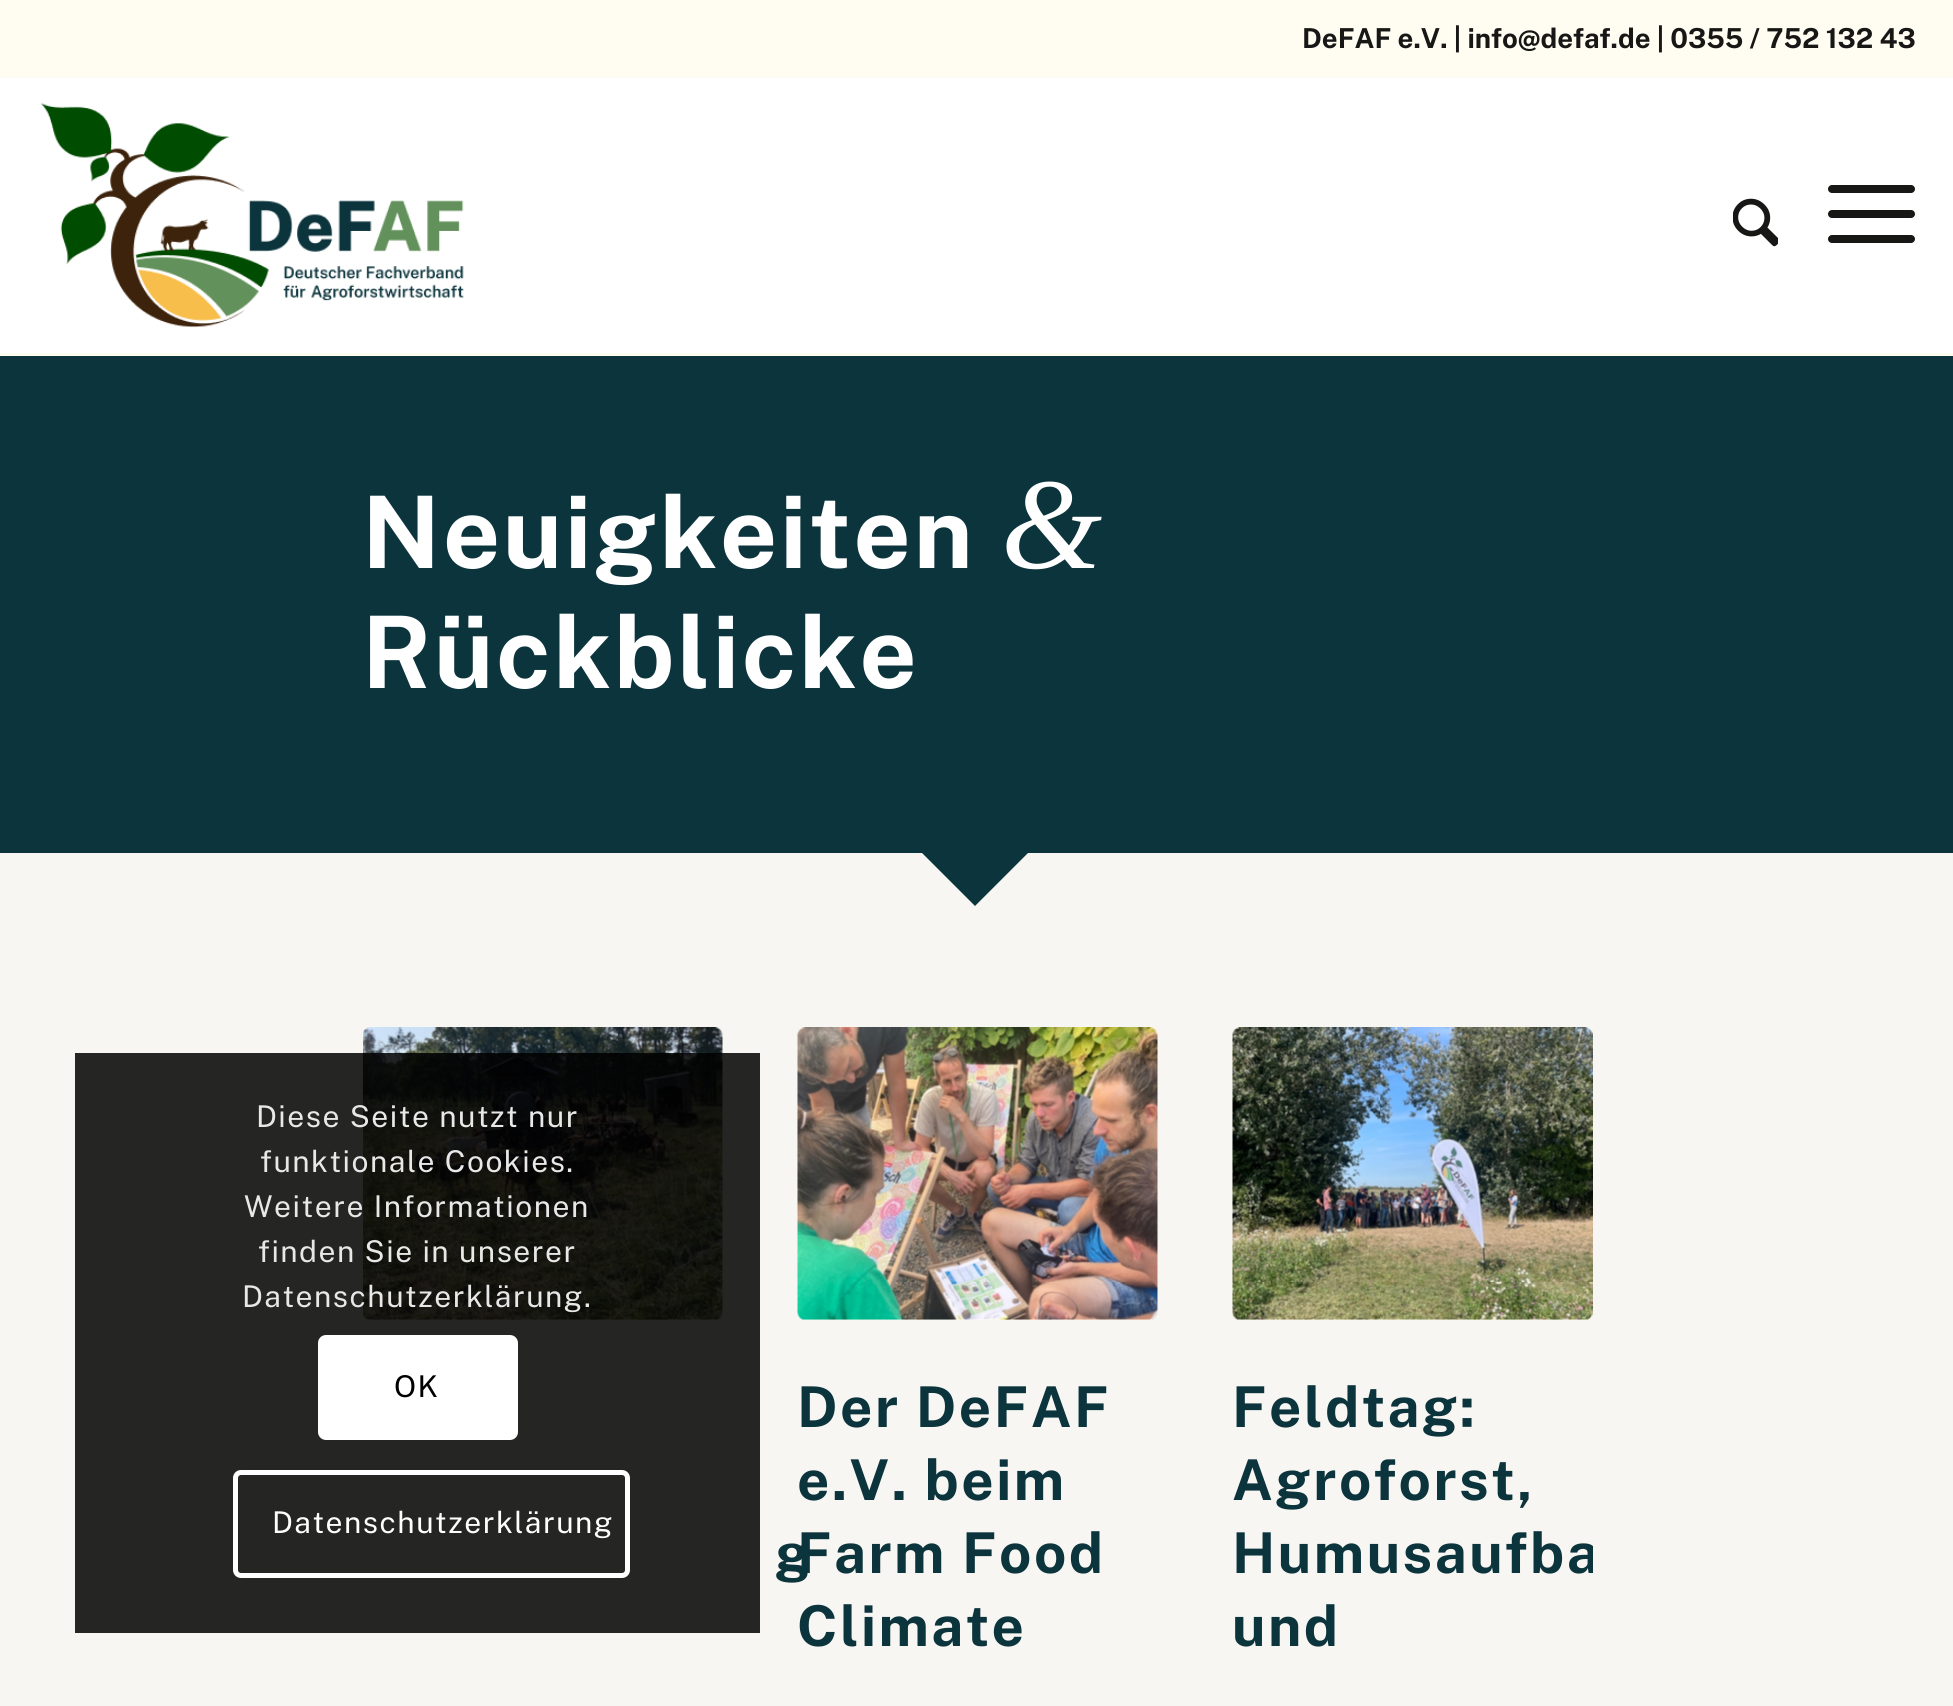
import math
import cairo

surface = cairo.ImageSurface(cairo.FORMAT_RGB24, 1953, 1706)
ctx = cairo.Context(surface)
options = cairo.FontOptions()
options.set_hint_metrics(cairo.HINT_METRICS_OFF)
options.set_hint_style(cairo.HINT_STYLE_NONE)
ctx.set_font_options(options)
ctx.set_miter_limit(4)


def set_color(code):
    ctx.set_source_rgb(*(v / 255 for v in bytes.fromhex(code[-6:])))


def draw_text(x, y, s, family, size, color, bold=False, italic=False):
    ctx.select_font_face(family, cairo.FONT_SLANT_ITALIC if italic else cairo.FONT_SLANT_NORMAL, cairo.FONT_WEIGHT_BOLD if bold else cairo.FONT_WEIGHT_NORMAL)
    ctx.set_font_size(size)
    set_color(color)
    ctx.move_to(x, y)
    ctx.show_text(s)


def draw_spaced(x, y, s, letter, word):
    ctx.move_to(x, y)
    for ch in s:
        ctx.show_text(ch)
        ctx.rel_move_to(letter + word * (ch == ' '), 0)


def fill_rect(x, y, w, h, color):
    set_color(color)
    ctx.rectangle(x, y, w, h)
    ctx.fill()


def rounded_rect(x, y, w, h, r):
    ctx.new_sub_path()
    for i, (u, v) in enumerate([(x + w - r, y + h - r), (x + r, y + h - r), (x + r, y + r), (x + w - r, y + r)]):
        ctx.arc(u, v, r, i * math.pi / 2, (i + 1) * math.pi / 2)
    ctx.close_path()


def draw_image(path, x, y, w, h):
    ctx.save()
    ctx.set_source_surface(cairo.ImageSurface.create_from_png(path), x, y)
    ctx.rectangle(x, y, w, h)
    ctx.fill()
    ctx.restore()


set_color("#ffffff")
ctx.paint()
fill_rect(0, 0, 1953, 78, "#fffcf2")
draw_text(1302, 48, "DeFAF e.V. | info@defaf.de | 0355 / 752 132 43", "Public Sans", 27.5, "#171716", bold=True)
fill_rect(0, 353, 1953, 3, "#fffcf2")
draw_image("assets/img1.png", 41, 103, 423, 225)
draw_image("assets/img2.png", 1733, 198, 45, 49)
set_color("#171716")
rounded_rect(1828, 210, 87, 8, 4)
ctx.fill()
rounded_rect(1828, 185, 87, 8, 4)
ctx.fill()
rounded_rect(1828, 235, 87, 8, 4)
ctx.fill()
fill_rect(0, 356, 1953, 497, "#0c343d")
ctx.set_font_size(100)
set_color("#ffffff")
draw_spaced(362, 568, "Neuigkeiten", 2.5, 0)
ctx.select_font_face("Liberation Serif", cairo.FONT_SLANT_ITALIC)
ctx.set_font_size(130)
draw_spaced(1001, 568, "&", 2.5, 0)
ctx.select_font_face("Public Sans", cairo.FONT_SLANT_NORMAL, cairo.FONT_WEIGHT_BOLD)
ctx.set_font_size(100)
draw_spaced(362, 688, "Rückblicke", 2.5, 0)
fill_rect(0, 853, 1953, 853, "#f7f6f2")
ctx.save()
ctx.rectangle(913, 853, 125, 62)
ctx.clip()
set_color("#0c343d")
ctx.new_path()
ctx.move_to(975, 729)
ctx.line_to(1063, 818)
ctx.line_to(975, 906)
ctx.line_to(887, 818)
ctx.close_path()
ctx.fill()
ctx.restore()
set_color("#fffcf2")
rounded_rect(363, 1028, 360, 292, 8)
ctx.fill()
draw_image("assets/img3.png", 363, 1027, 360, 293)
ctx.set_font_size(56.25)
set_color("#0c343d")
draw_spaced(775, 1573, "g", 2.5, 0)
set_color("#fffcf2")
rounded_rect(798, 1028, 360, 292, 8)
ctx.fill()
draw_image("assets/img4.png", 797, 1027, 361, 293)
set_color("#0c343d")
draw_spaced(797, 1427, "Der DeFAF", 2.5, 0)
draw_spaced(797, 1500, "e.V. beim", 2.5, 0)
draw_spaced(797, 1573, "Farm Food", 2.5, 0)
draw_spaced(797, 1646, "Climate", 2.5, 0)
set_color("#fffcf2")
rounded_rect(1233, 1028, 360, 292, 8)
ctx.fill()
draw_image("assets/img5.png", 1232, 1027, 361, 293)
set_color("#0c343d")
draw_spaced(1232, 1427, "Feldtag:", 2.5, 0)
draw_spaced(1232, 1500, "Agroforst,", 2.5, 0)
ctx.save()
ctx.rectangle(363, 1028, 1230, 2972)
ctx.clip()
draw_spaced(1232, 1573, "Humusaufba", 2.5, 0)
ctx.restore()
draw_spaced(1232, 1646, "und", 2.5, 0)
ctx.set_source_rgba(0, 0, 0, 0.85)
ctx.rectangle(75, 1053, 685, 580)
ctx.fill()
ctx.select_font_face("Public Sans")
ctx.set_font_size(30)
set_color("#e8e8e8")
draw_spaced(256, 1127, "Diese Seite nutzt nur", 1.5, 0)
draw_spaced(260, 1172, "funktionale Cookies.", 1.5, 0)
draw_spaced(244, 1217, "Weitere Informationen", 1.5, 0)
draw_spaced(258, 1262, "finden Sie in unserer", 1.5, 0)
draw_spaced(242, 1307, "Datenschutzerklärung.", 1.5, 0)
set_color("#ffffff")
rounded_rect(318, 1335, 200, 105, 8)
ctx.fill()
set_color("#000000")
draw_spaced(394, 1397, "OK", 1.5, 0)
rounded_rect(235.5, 1472.5, 392, 103, 5.5)
set_color("#ffffff")
ctx.set_line_width(5)
ctx.stroke()
draw_spaced(272, 1533, "Datenschutzerklärung", 1.5, 0)
surface.write_to_png("output.png")
